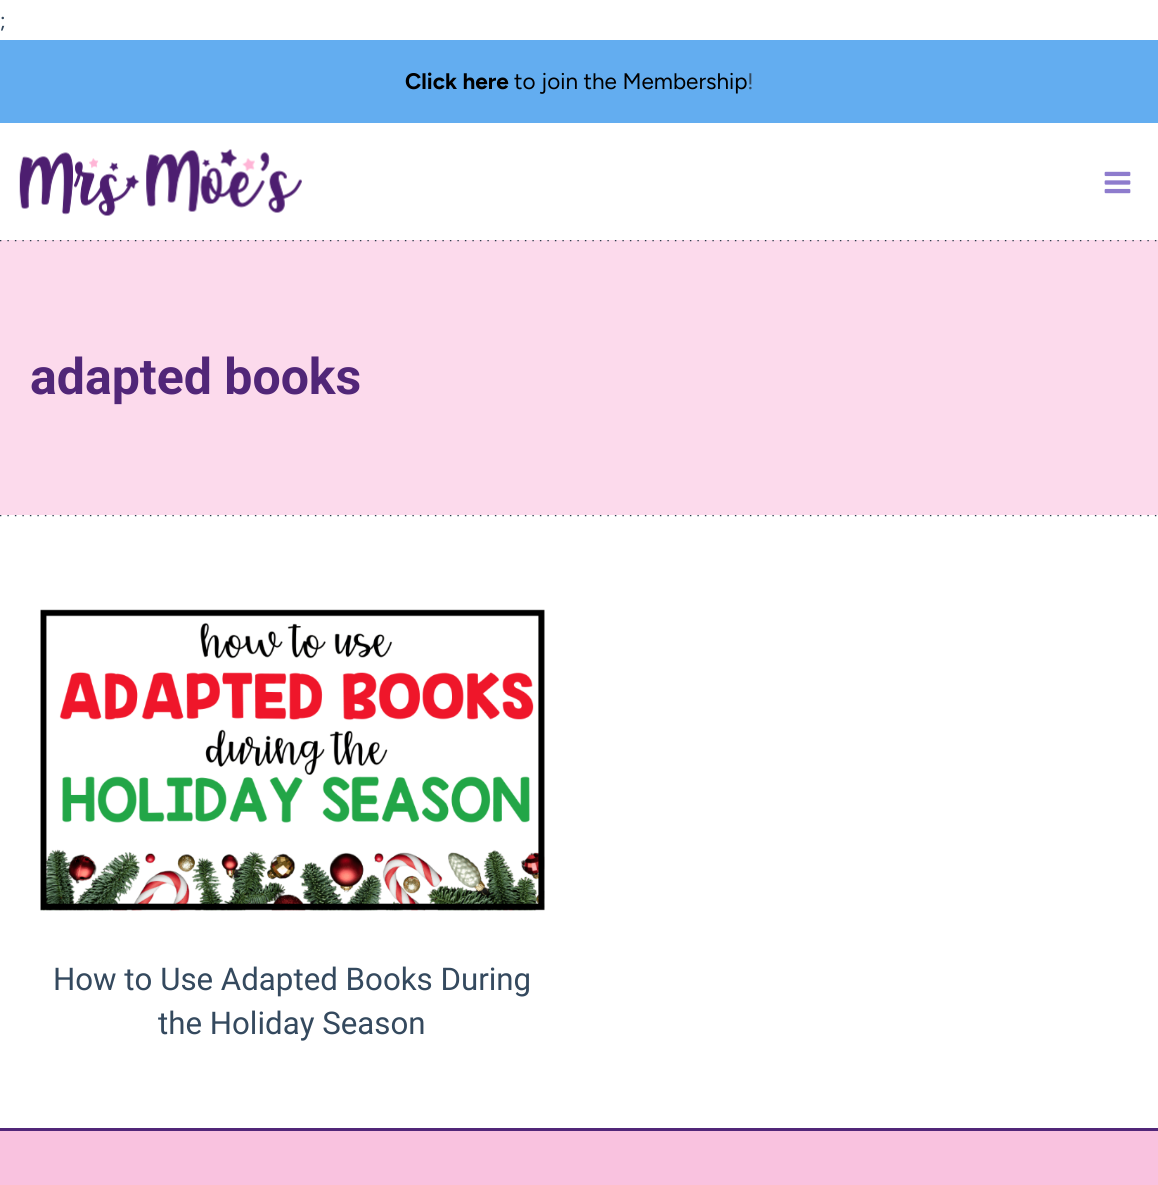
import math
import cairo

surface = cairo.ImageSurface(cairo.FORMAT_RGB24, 1158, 1185)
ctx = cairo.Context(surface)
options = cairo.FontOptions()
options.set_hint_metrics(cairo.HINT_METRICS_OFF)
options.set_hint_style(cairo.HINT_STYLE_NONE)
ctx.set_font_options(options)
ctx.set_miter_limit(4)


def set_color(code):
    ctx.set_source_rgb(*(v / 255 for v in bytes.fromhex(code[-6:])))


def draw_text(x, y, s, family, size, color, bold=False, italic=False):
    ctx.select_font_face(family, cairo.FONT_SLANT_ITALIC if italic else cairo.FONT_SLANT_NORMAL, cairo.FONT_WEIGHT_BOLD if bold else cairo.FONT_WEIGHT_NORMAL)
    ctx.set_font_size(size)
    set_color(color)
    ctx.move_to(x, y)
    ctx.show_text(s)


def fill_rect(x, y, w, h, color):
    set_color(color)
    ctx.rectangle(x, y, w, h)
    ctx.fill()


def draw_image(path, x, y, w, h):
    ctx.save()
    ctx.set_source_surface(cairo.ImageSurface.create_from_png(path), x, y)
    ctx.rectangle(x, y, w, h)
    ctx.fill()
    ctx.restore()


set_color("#ffffff")
ctx.paint()
draw_text(0, 28, ";", "Figtree", 22.5, "#34495e")
fill_rect(0, 40, 1158, 83, "#63adf0")
draw_text(405, 89, "Click here", "Figtree", 22.5, "#000000", bold=True)
draw_text(514, 89, "to join the Membership", "Figtree", 22.5, "#000000")
draw_text(747, 89, "!", "Figtree", 22.5, "#34495e")
draw_image("assets/img1.png", 19, 149, 283, 67)
draw_image("assets/img2.png", 1104, 171, 27, 23)
fill_rect(0, 240, 1158, 275, "#fcdaec")
draw_image("assets/img3.png", 0, 240, 1157, 2)
draw_text(30, 394, "adapted books", "Roboto", 50, "#512678", bold=True)
draw_image("assets/img4.png", 0, 515, 1157, 2)
draw_image("assets/img5.png", 40, 609, 505, 302)
draw_text(53, 990, "How to Use Adapted Books During", "Roboto", 31.25, "#34495e")
draw_text(158, 1034, "the Holiday Season", "Roboto", 31.25, "#34495e")
fill_rect(0, 1131, 1158, 54, "#f9c2df")
fill_rect(0, 1128, 1158, 3, "#512678")
surface.write_to_png("output.png")
